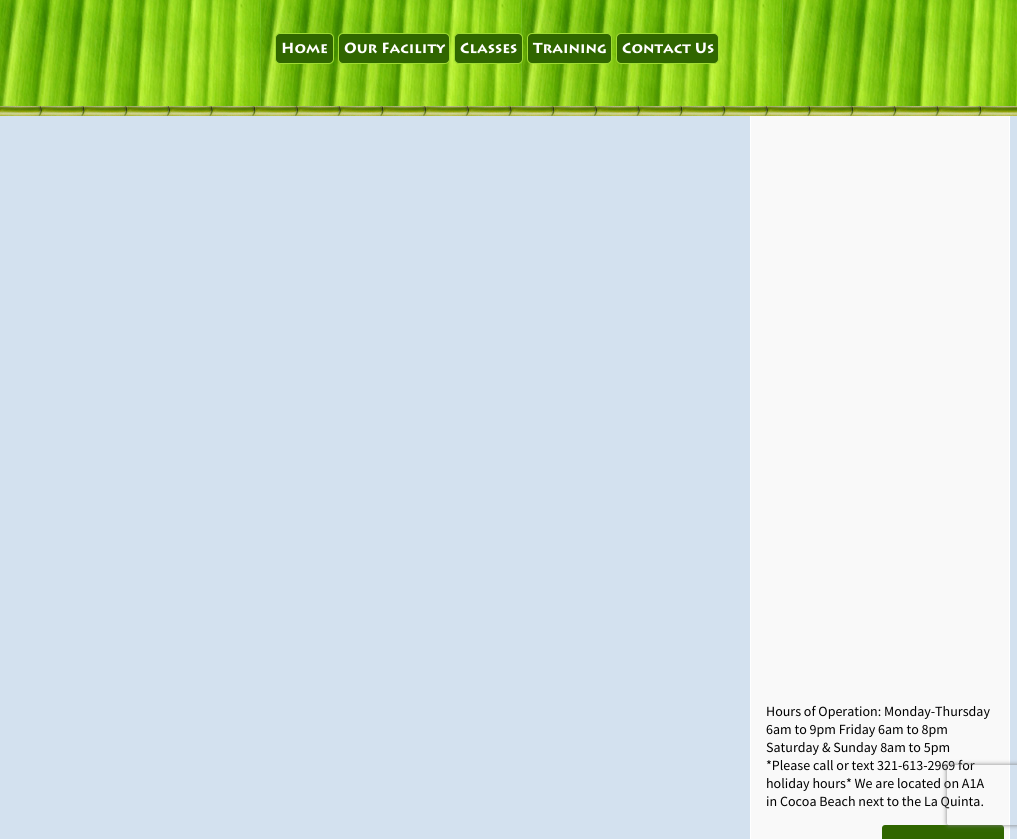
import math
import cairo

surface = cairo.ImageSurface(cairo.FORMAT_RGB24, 1017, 839)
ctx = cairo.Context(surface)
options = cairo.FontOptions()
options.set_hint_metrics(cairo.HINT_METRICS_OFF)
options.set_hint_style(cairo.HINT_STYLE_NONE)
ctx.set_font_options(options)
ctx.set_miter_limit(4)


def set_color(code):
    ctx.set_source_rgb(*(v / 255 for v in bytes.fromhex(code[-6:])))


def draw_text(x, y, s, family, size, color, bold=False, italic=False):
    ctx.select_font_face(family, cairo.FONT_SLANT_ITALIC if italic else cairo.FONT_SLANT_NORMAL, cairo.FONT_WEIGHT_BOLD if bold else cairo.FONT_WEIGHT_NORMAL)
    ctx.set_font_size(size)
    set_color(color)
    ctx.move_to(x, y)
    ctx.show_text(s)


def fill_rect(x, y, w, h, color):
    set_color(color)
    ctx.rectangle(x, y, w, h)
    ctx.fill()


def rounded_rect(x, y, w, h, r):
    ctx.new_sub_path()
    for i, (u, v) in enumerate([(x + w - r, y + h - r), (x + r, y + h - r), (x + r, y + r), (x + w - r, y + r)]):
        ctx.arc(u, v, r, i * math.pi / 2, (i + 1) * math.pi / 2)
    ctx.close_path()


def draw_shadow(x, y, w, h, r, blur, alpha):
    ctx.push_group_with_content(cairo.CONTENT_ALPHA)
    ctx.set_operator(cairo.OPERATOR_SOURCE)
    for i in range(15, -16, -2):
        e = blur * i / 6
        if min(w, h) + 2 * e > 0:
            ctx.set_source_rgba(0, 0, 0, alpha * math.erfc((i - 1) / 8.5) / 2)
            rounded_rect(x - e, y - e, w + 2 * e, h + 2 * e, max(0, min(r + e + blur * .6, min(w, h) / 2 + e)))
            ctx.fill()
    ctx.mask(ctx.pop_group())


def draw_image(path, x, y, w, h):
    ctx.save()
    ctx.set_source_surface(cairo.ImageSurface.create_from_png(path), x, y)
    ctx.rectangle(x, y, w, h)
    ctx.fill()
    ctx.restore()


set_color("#d3e1ef")
ctx.paint()
fill_rect(751, 116, 258, 723, "#f9f9f9")
ctx.rectangle(750.5, -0.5, 259, 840)
set_color("#ffffff")
ctx.set_line_width(1)
ctx.stroke()
draw_image("assets/img1.png", 0, 0, 1017, 106)
draw_image("assets/img2.png", 0, 106, 1017, 10)
set_color("#306600")
rounded_rect(275.5, 33.5, 58, 30, 4.5)
ctx.fill_preserve()
set_color("#a0dc34")
ctx.stroke()
draw_text(281, 53, "Home", "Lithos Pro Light", 14.5, "#ffffff", bold=True)
set_color("#306600")
rounded_rect(338.5, 33.5, 111, 30, 4.5)
ctx.fill_preserve()
set_color("#a0dc34")
ctx.stroke()
draw_text(344, 53, "Our Facility", "Lithos Pro Light", 14.5, "#ffffff", bold=True)
set_color("#306600")
rounded_rect(454.5, 33.5, 68, 30, 4.5)
ctx.fill_preserve()
set_color("#a0dc34")
ctx.stroke()
draw_text(460, 53, "Classes", "Lithos Pro Light", 14.5, "#ffffff", bold=True)
set_color("#306600")
rounded_rect(527.5, 33.5, 84, 30, 4.5)
ctx.fill_preserve()
set_color("#a0dc34")
ctx.stroke()
draw_text(533, 53, "Training", "Lithos Pro Light", 14.5, "#ffffff", bold=True)
set_color("#306600")
rounded_rect(616.5, 33.5, 102, 30, 4.5)
ctx.fill_preserve()
set_color("#a0dc34")
ctx.stroke()
draw_text(622, 53, "Contact Us", "Lithos Pro Light", 14.5, "#ffffff", bold=True)
draw_text(766, 716, "Hours of Operation: Monday-Thursday", "Source Sans Pro", 14, "#000000")
draw_text(766, 734, "6am to 9pm Friday 6am to 8pm", "Source Sans Pro", 14, "#000000")
draw_text(766, 752, "Saturday & Sunday 8am to 5pm", "Source Sans Pro", 14, "#000000")
draw_text(766, 770, "*Please call or text 321-613-2969 for", "Source Sans Pro", 14, "#000000")
draw_text(766, 788, "holiday hours* We are located on A1A", "Source Sans Pro", 14, "#000000")
draw_text(766, 806, "in Cocoa Beach next to the La Quinta.", "Source Sans Pro", 14, "#000000")
set_color("#306600")
rounded_rect(882, 825, 122, 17, 3)
ctx.fill()
ctx.save()
ctx.set_fill_rule(cairo.FILL_RULE_EVEN_ODD)
ctx.new_path()
ctx.move_to(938, 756)
ctx.line_to(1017, 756)
ctx.line_to(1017, 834)
ctx.line_to(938, 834)
ctx.close_path()
ctx.move_to(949, 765)
ctx.line_to(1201, 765)
ctx.curve_to(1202, 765, 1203, 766, 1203, 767)
ctx.line_to(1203, 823)
ctx.curve_to(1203, 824, 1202, 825, 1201, 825)
ctx.line_to(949, 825)
ctx.curve_to(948, 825, 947, 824, 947, 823)
ctx.line_to(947, 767)
ctx.curve_to(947, 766, 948, 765, 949, 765)
ctx.close_path()
ctx.clip()
set_color("#808080")
draw_shadow(947, 765, 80, 60, 2, 2.5, 1)
ctx.restore()
surface.write_to_png("output.png")
